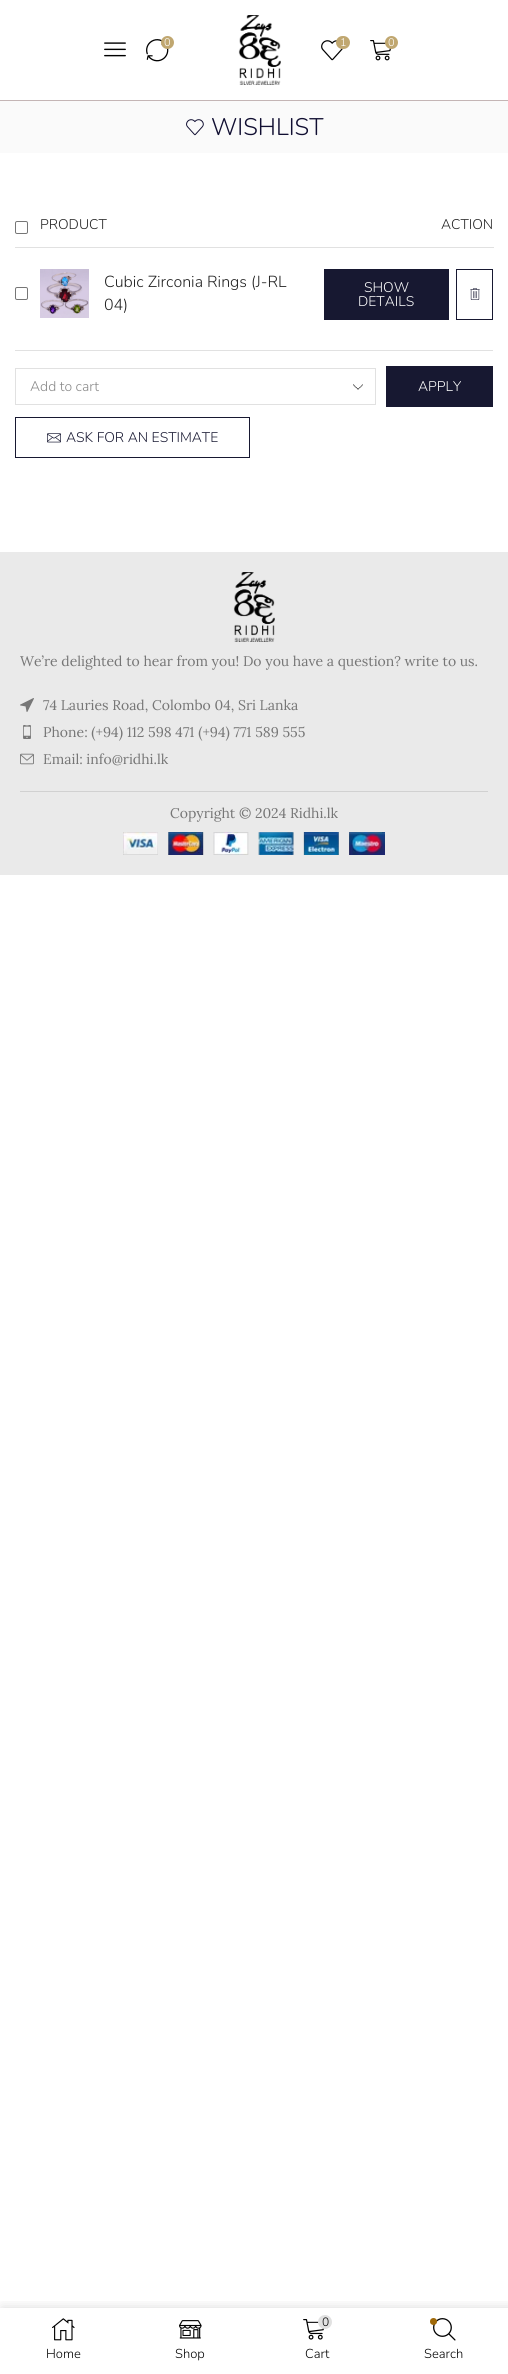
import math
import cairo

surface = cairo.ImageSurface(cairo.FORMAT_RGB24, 508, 2374)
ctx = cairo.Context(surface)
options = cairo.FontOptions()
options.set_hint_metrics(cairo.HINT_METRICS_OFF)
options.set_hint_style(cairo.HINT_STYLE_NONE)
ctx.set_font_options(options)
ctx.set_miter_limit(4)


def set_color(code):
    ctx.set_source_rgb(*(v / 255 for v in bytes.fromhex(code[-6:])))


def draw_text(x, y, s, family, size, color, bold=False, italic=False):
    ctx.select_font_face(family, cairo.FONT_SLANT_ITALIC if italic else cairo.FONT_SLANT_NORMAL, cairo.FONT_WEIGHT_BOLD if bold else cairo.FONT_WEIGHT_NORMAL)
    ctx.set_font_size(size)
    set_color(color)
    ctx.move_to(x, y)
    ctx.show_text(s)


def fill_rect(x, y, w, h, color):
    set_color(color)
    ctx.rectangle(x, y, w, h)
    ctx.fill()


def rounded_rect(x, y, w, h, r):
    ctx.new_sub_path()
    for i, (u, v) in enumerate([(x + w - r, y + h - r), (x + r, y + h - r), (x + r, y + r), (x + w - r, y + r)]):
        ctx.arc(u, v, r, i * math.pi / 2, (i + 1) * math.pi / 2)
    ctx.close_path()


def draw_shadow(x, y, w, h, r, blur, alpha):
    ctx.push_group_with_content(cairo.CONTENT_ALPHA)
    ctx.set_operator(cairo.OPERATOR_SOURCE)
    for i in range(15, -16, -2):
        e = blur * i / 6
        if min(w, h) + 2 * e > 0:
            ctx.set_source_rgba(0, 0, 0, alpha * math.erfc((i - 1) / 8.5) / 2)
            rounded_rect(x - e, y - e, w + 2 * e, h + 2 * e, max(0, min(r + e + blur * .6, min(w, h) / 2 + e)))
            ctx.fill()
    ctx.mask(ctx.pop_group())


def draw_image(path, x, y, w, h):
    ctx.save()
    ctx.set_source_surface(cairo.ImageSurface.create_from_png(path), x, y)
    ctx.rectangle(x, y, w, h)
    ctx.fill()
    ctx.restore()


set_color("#ffffff")
ctx.paint()
fill_rect(0, 100, 508, 1, "#c4b5b5")
draw_image("assets/img1.png", 104, 42, 22, 15)
draw_image("assets/img2.png", 146, 39, 23, 23)
set_color("#c0a770")
ctx.arc(167.5, 42.5, 6.5, 0, 2 * math.pi)
ctx.fill()
draw_text(164, 46, "0", "Nunito Light", 11, "#ffffff")
draw_image("assets/img3.png", 238, 15, 43, 70)
draw_image("assets/img4.png", 321, 40, 22, 21)
set_color("#c0a770")
rounded_rect(336, 36, 14, 13, 6.5)
ctx.fill()
draw_text(340, 46, "1", "Nunito Light", 11, "#ffffff")
draw_image("assets/img5.png", 370, 40, 22, 21)
set_color("#c0a770")
ctx.arc(391.5, 42.5, 6.5, 0, 2 * math.pi)
ctx.fill()
draw_text(388, 46, "0", "Nunito Light", 11, "#ffffff")
fill_rect(0, 101, 508, 52, "#fafafa")
draw_image("assets/img6.png", 186, 119, 18, 17)
draw_text(211, 135, "WISHLIST", "Nunito Light", 24, "#100e31")
fill_rect(15, 247, 479, 1, "#e1e1e1")
rounded_rect(15.5, 221.5, 12, 12, 1.5)
set_color("#767676")
ctx.set_line_width(1)
ctx.stroke()
draw_text(40, 229, "PRODUCT", "Nunito Light", 14, "#222222")
draw_text(441, 229, "ACTION", "Nunito Light", 14, "#222222")
rounded_rect(15.5, 287.5, 12, 12, 1.5)
set_color("#767676")
ctx.stroke()
draw_image("assets/img7.png", 40, 269, 49, 49)
draw_text(104, 287, "Cubic Zirconia Rings (J-RL", "Nunito Light", 16, "#222222")
draw_text(104, 310, "04)", "Nunito Light", 16, "#222222")
fill_rect(324, 269, 125, 51, "#171831")
draw_text(364, 292, "SHOW", "Nunito Light", 14, "#ffffff")
draw_text(358, 306, "DETAILS", "Nunito Light", 14, "#ffffff")
ctx.rectangle(456.5, 269.5, 36, 50)
set_color("#171831")
ctx.stroke()
draw_image("assets/img8.png", 470, 288, 10, 12)
fill_rect(15, 350, 478, 1, "#e1e1e1")
draw_image("assets/img9.png", 353, 384, 10, 6)
ctx.rectangle(15.5, 368.5, 360, 36)
ctx.stroke()
draw_text(30, 391, "Add to cart", "Nunito Light", 14, "#888888")
fill_rect(386, 366, 107, 41, "#171831")
draw_text(418, 391, "APPLY", "Nunito Light", 14, "#ffffff")
ctx.rectangle(15.5, 417.5, 234, 40)
set_color("#171831")
ctx.stroke()
draw_image("assets/img10.png", 47, 433, 14, 10)
draw_text(66, 442, "ASK FOR AN ESTIMATE", "Nunito Light", 14, "#171831")
ctx.save()
ctx.rectangle(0, 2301, 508, 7)
ctx.clip()
set_color("#000000")
draw_shadow(2, 2308, 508, 66, 0, 6, 0.15)
ctx.restore()
draw_image("assets/img11.png", 52, 2318, 23, 23)
draw_text(46, 2358, "Home", "Nunito Light", 13, "#000000")
draw_image("assets/img12.png", 179, 2320, 23, 19)
draw_text(175, 2358, "Shop", "Nunito Light", 13, "#000000")
draw_image("assets/img13.png", 303, 2319, 22, 21)
set_color("#e1e1e1")
ctx.arc(325, 2322, 7, 0, 2 * math.pi)
ctx.fill()
draw_text(322, 2326, "0", "Nunito Light", 12, "#000000")
draw_text(305, 2358, "Cart", "Nunito Light", 13, "#000000")
draw_image("assets/img14.png", 433, 2318, 23, 23)
set_color("#9f690a")
ctx.arc(433.5, 2321.5, 3.5, 0, 2 * math.pi)
ctx.fill()
draw_text(424, 2358, "Search", "Nunito Light", 13, "#000000")
fill_rect(0, 552, 508, 323, "#eaeaea")
draw_image("assets/img15.png", 233, 572, 42, 70)
draw_text(20, 666, "We’re delighted to hear from you! Do you have a question? write to us.", "Lora", 14, "#767676")
draw_image("assets/img16.png", 20, 698, 14, 14)
draw_text(43, 710, "74 Lauries Road, Colombo 04, Sri Lanka", "Lora", 14, "#767676")
draw_image("assets/img17.png", 23, 725, 8, 14)
draw_text(43, 737, "Phone: (+94) 112 598 471 (+94) 771 589 555", "Lora", 14, "#767676")
draw_image("assets/img18.png", 20, 753, 14, 12)
draw_text(43, 764, "Email: info@ridhi.lk", "Lora", 14, "#767676")
fill_rect(20, 791, 468, 1, "#d1d1d1")
draw_text(170, 818, "Copyright © 2024 Ridhi.lk", "Lora", 14, "#767676")
draw_image("assets/img19.png", 123, 832, 262, 23)
surface.write_to_png("output.png")
